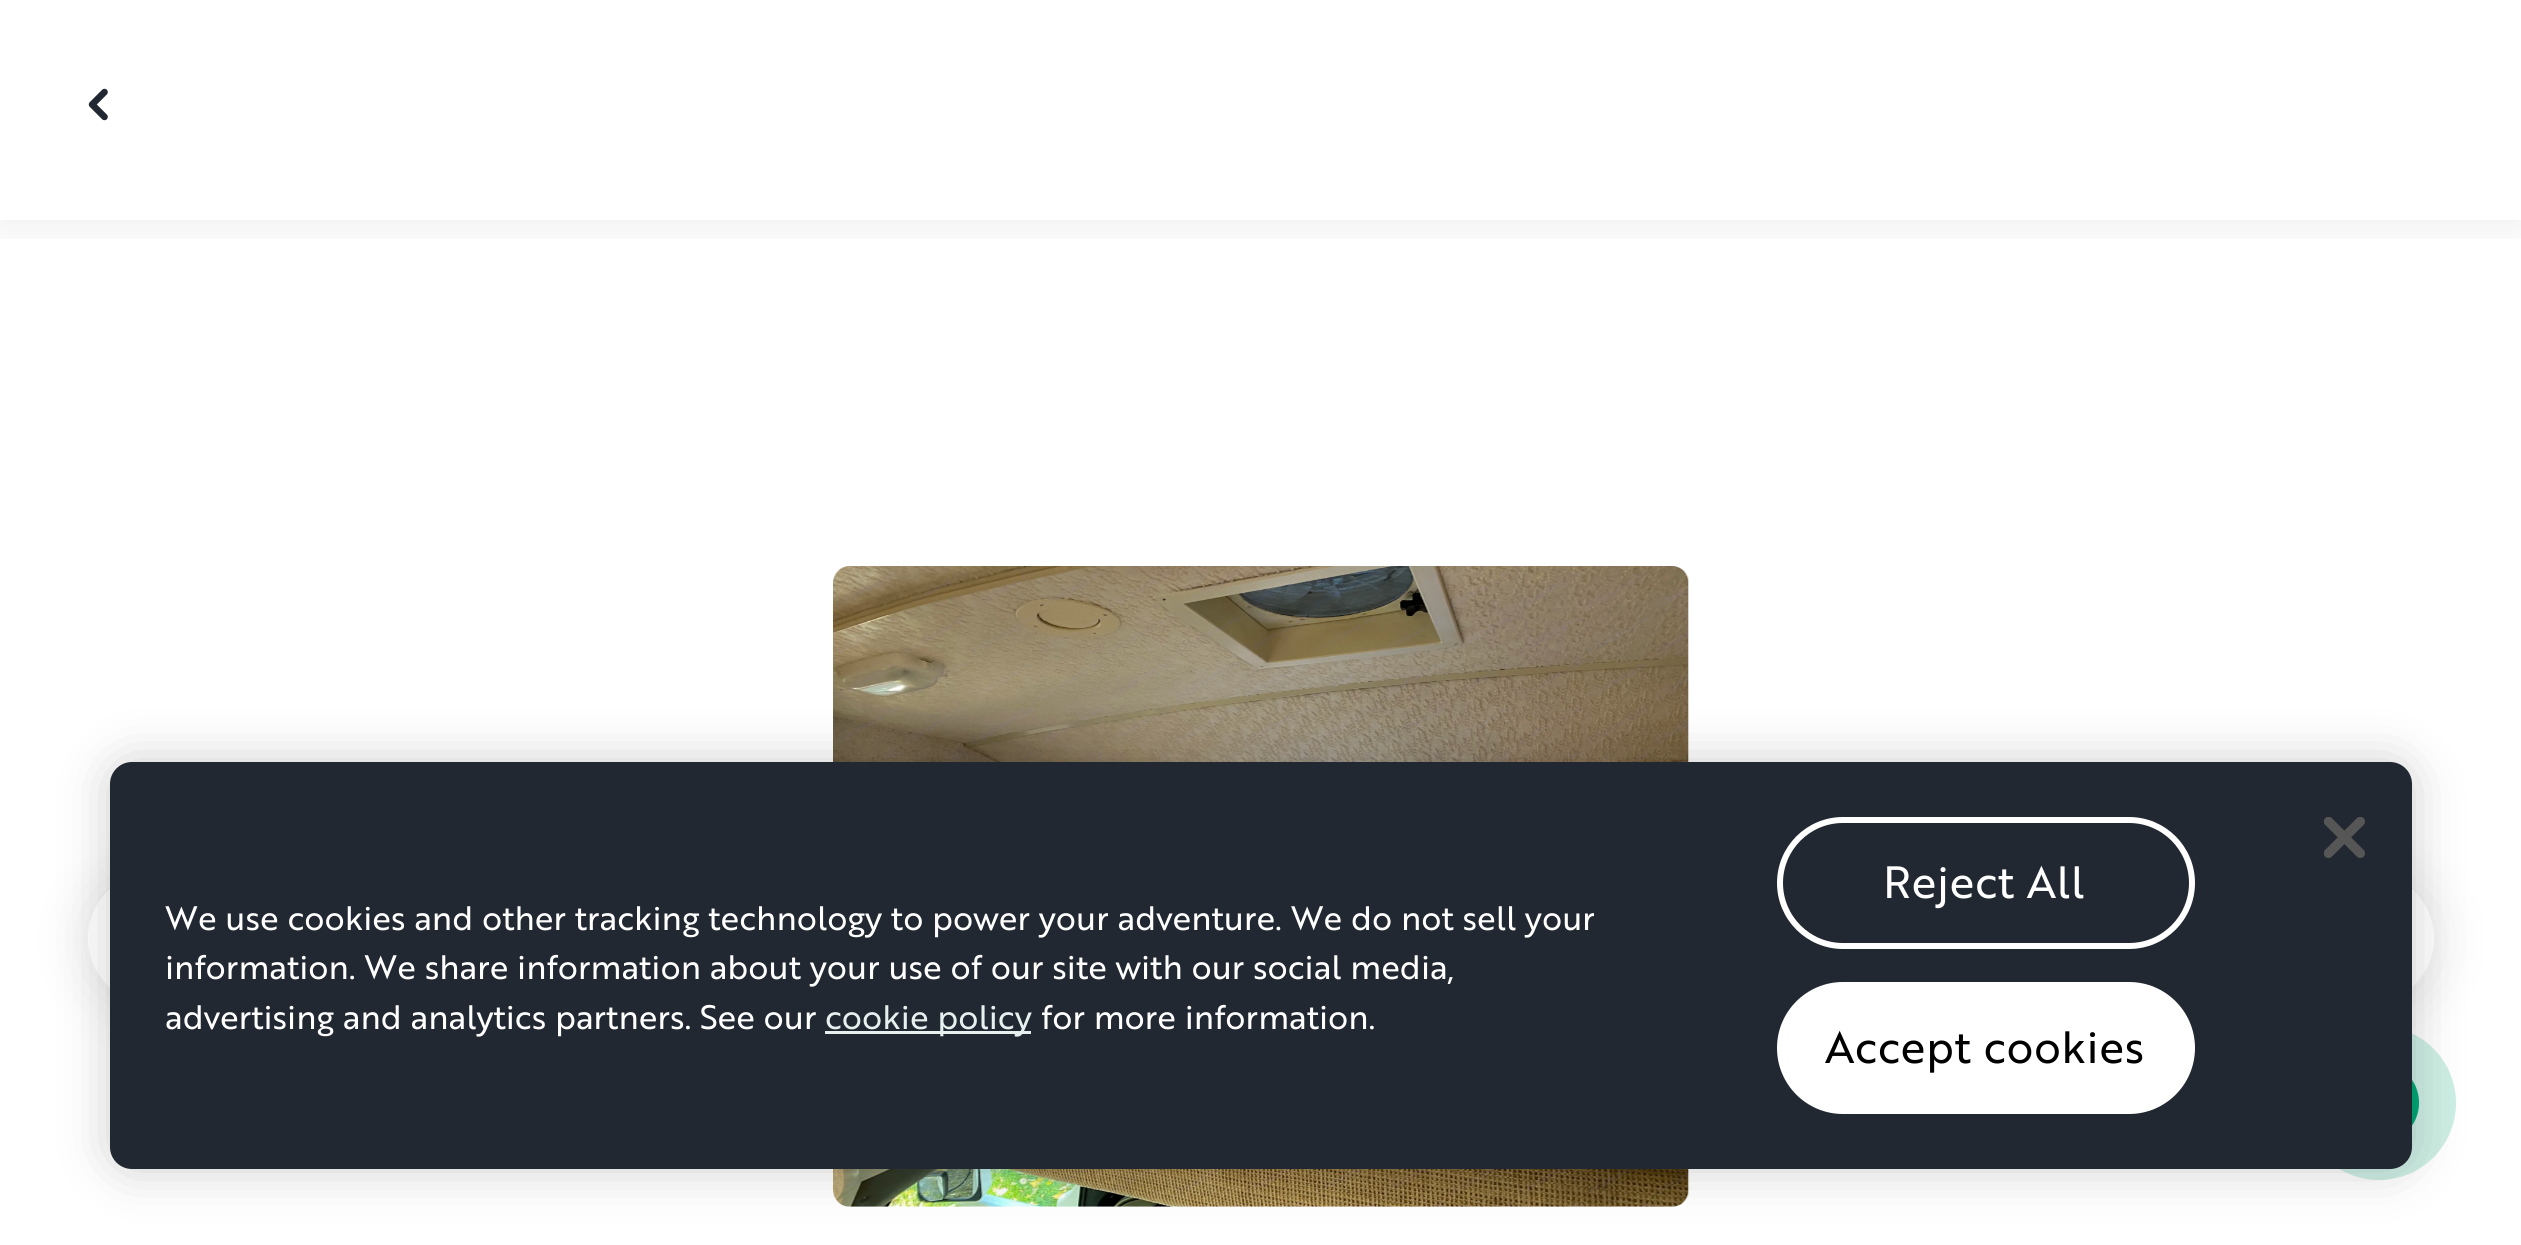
import math
import cairo

surface = cairo.ImageSurface(cairo.FORMAT_RGB24, 2521, 1245)
ctx = cairo.Context(surface)
options = cairo.FontOptions()
options.set_hint_metrics(cairo.HINT_METRICS_OFF)
options.set_hint_style(cairo.HINT_STYLE_NONE)
ctx.set_font_options(options)
ctx.set_miter_limit(4)


def set_color(code):
    ctx.set_source_rgb(*(v / 255 for v in bytes.fromhex(code[-6:])))


def draw_text(x, y, s, family, size, color, bold=False, italic=False):
    ctx.select_font_face(family, cairo.FONT_SLANT_ITALIC if italic else cairo.FONT_SLANT_NORMAL, cairo.FONT_WEIGHT_BOLD if bold else cairo.FONT_WEIGHT_NORMAL)
    ctx.set_font_size(size)
    set_color(color)
    ctx.move_to(x, y)
    ctx.show_text(s)


def draw_spaced(x, y, s, letter, word):
    ctx.move_to(x, y)
    for ch in s:
        ctx.show_text(ch)
        ctx.rel_move_to(letter + word * (ch == ' '), 0)


def fill_rect(x, y, w, h, color):
    set_color(color)
    ctx.rectangle(x, y, w, h)
    ctx.fill()


def rounded_rect(x, y, w, h, r):
    ctx.new_sub_path()
    for i, (u, v) in enumerate([(x + w - r, y + h - r), (x + r, y + h - r), (x + r, y + r), (x + w - r, y + r)]):
        ctx.arc(u, v, r, i * math.pi / 2, (i + 1) * math.pi / 2)
    ctx.close_path()


def draw_shadow(x, y, w, h, r, blur, alpha):
    ctx.push_group_with_content(cairo.CONTENT_ALPHA)
    ctx.set_operator(cairo.OPERATOR_SOURCE)
    for i in range(15, -16, -2):
        e = blur * i / 6
        if min(w, h) + 2 * e > 0:
            ctx.set_source_rgba(0, 0, 0, alpha * math.erfc((i - 1) / 8.5) / 2)
            rounded_rect(x - e, y - e, w + 2 * e, h + 2 * e, max(0, min(r + e + blur * .6, min(w, h) / 2 + e)))
            ctx.fill()
    ctx.mask(ctx.pop_group())


def draw_image(path, x, y, w, h):
    ctx.save()
    ctx.set_source_surface(cairo.ImageSurface.create_from_png(path), x, y)
    ctx.rectangle(x, y, w, h)
    ctx.fill()
    ctx.restore()


set_color("#ffffff")
ctx.paint()
ctx.save()
ctx.rectangle(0, 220, 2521, 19)
ctx.clip()
set_color("#0f0f0f")
draw_shadow(0, 0, 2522, 220, 0, 22, 0.1)
ctx.restore()
draw_image("assets/img1.png", 88, 88, 20, 33)
set_color("#000000")
draw_shadow(88, 875, 132, 132, 66, 27.5, 0.1)
set_color("#ffffff")
ctx.arc(154, 938, 66, 0, 2 * math.pi)
ctx.fill()
draw_image("assets/img2.png", 833, 566, 856, 641)
set_color("#000000")
draw_shadow(2302, 875, 132, 132, 66, 27.5, 0.1)
set_color("#ffffff")
ctx.arc(2368, 938, 66, 0, 2 * math.pi)
ctx.fill()
set_color("#cdeee4")
ctx.arc(2379, 1103, 77, 0, 2 * math.pi)
ctx.fill()
draw_image("assets/img3.png", 2412, 1080, 8, 46)
set_color("#000000")
draw_shadow(110, 762, 2302, 407, 22, 25, 0.2)
set_color("#212831")
rounded_rect(110, 762, 2302, 407, 22)
ctx.fill()
draw_image("assets/img4.png", 2324, 817, 41, 41)
draw_text(165, 930, "We use cookies and other tracking technology to power your adventure. We do not sell your", "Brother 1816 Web", 33, "#ffffff")
draw_text(165, 979, "information. We share information about your use of our site with our social media,", "Brother 1816 Web", 33, "#ffffff")
draw_text(165, 1029, "advertising and analytics partners. See our", "Brother 1816 Web", 33, "#ffffff")
fill_rect(825, 1031, 206, 3, "#e6f0ef")
draw_text(825, 1029, "cookie policy", "Brother 1816 Web", 33, "#e6f0ef")
draw_text(1041, 1029, "for more information.", "Brother 1816 Web", 33, "#ffffff")
rounded_rect(1780, 820, 412, 126, 63)
ctx.set_line_width(6)
ctx.stroke()
ctx.set_font_size(44)
draw_spaced(1883, 898, "Reject All", 0.5, 0)
rounded_rect(1777, 982, 418, 132, 66)
ctx.fill()
set_color("#000000")
draw_spaced(1825, 1063, "Accept cookies", 0.5, 0)
surface.write_to_png("output.png")
